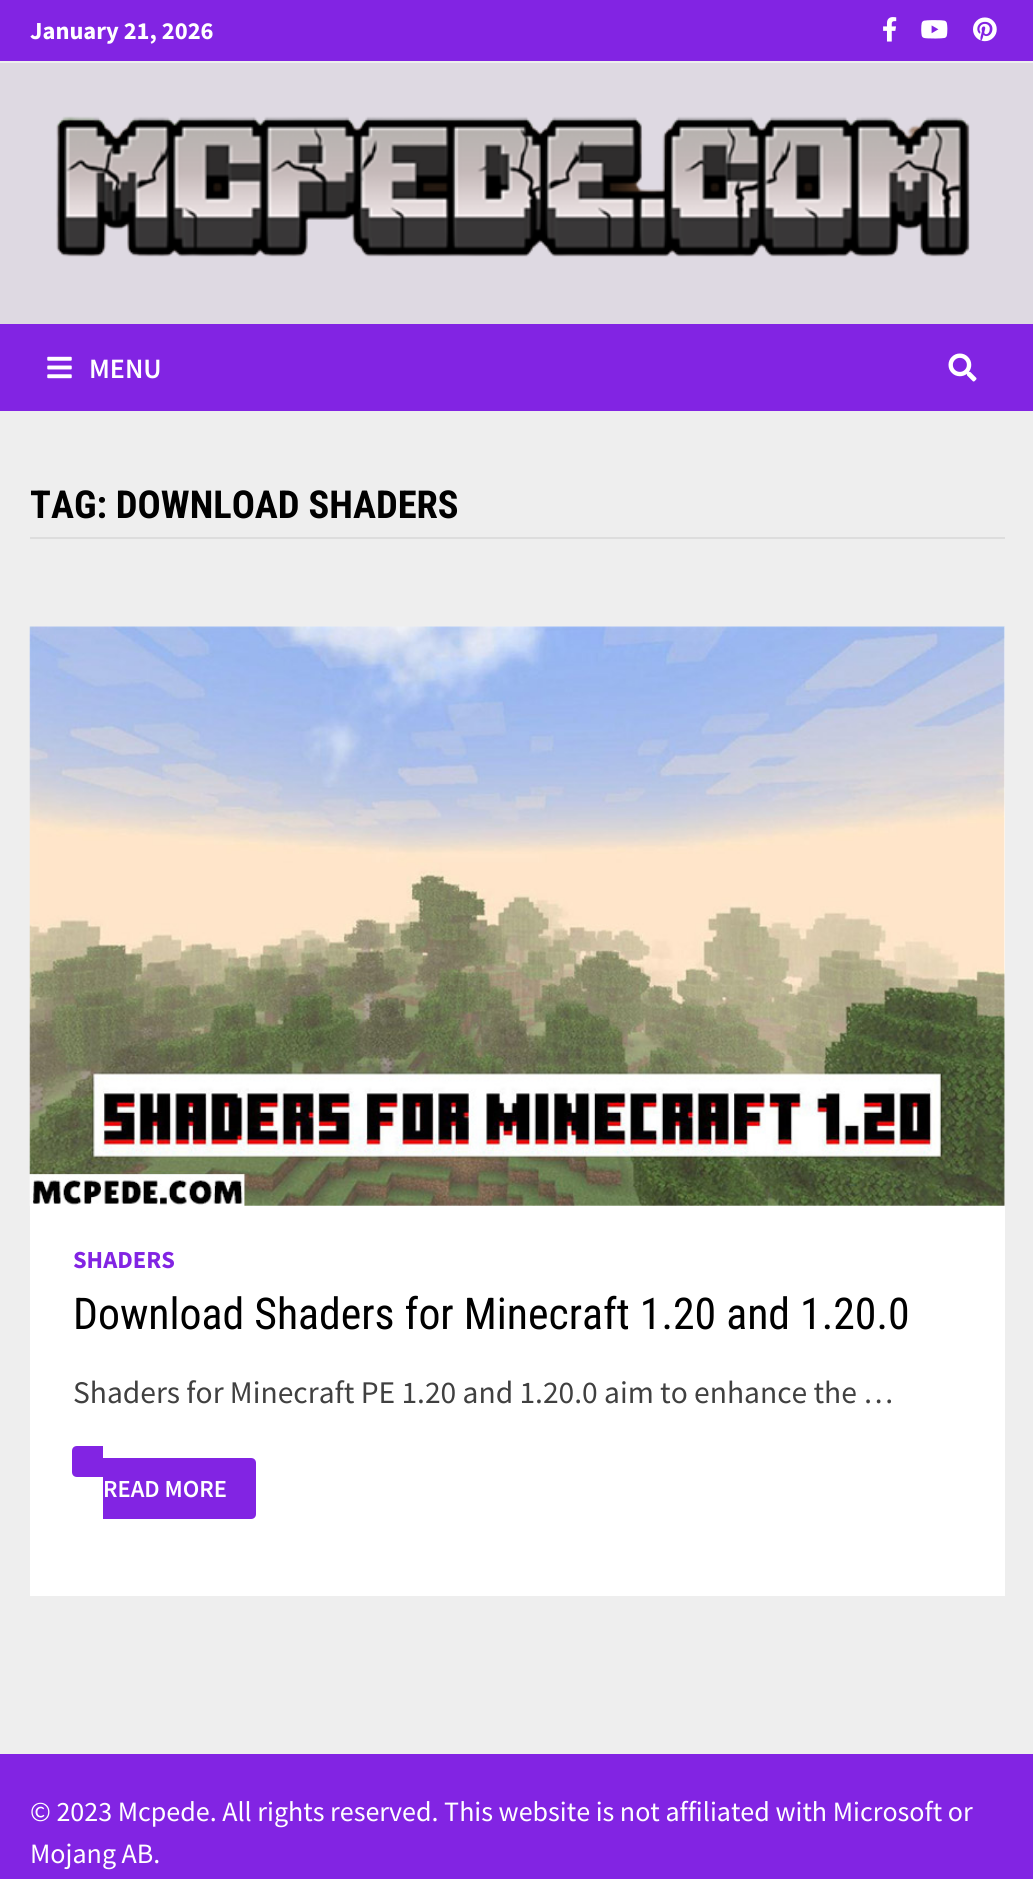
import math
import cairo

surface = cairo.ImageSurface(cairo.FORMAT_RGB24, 1033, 1879)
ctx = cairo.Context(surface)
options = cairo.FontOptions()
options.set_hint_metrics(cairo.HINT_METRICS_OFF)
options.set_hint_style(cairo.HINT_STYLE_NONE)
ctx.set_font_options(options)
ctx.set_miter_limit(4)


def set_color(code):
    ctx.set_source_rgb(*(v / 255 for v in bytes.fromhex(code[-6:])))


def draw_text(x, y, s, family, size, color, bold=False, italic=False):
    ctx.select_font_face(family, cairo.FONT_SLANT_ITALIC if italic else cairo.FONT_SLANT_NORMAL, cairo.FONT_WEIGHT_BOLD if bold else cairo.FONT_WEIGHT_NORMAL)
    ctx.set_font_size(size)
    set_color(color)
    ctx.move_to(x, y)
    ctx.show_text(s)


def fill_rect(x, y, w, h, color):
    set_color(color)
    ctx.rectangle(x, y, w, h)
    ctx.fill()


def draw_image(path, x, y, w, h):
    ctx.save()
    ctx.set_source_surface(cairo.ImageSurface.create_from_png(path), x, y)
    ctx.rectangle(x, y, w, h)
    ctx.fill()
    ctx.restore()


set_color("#8224e3")
ctx.paint()
fill_rect(0, 61, 1033, 2, "#eeeeee")
draw_text(30, 39, "January 21, 2026", "Source Sans Pro", 24.5, "#ffffff", bold=True)
draw_image("assets/img1.png", 883, 17, 14, 25)
draw_image("assets/img2.png", 921, 20, 27, 19)
draw_image("assets/img3.png", 973, 17, 24, 25)
fill_rect(0, 63, 1033, 261, "#ded9e2")
draw_image("assets/img4.png", 56, 116, 914, 141)
draw_image("assets/img5.png", 47, 356, 25, 23)
draw_text(89, 378, "MENU", "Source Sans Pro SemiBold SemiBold", 28, "#ffffff")
draw_image("assets/img6.png", 948, 353, 29, 29)
fill_rect(0, 411, 1033, 1343, "#eeeeee")
fill_rect(30, 537, 975, 2, "#dddddd")
draw_text(30, 518, "TAG: DOWNLOAD SHADERS", "Roboto Condensed", 38.5, "#000000", bold=True)
fill_rect(30, 627, 975, 969, "#ffffff")
draw_image("assets/img7.png", 29, 626, 976, 580)
draw_text(73, 1268, "SHADERS", "Source Sans Pro", 24.5, "#8224e3", bold=True)
draw_text(73, 1329, "Download Shaders for Minecraft 1.20 and 1.20.0", "Roboto Condensed", 43.75, "#000000")
draw_text(73, 1403, "Shaders for Minecraft PE 1.20 and 1.20.0 aim to enhance the …", "Source Sans Pro", 31.5, "#404040")
set_color("#8224e3")
ctx.new_path()
ctx.move_to(103, 1458)
ctx.line_to(251, 1458)
ctx.curve_to(254, 1458, 256, 1460, 256, 1463)
ctx.line_to(256, 1514)
ctx.curve_to(256, 1517, 254, 1519, 251, 1519)
ctx.line_to(103, 1519)
ctx.close_path()
ctx.fill()
draw_text(103, 1497, "READ MORE", "Source Sans Pro SemiBold SemiBold", 24.5, "#ffffff")
set_color("#8224e3")
ctx.new_path()
ctx.move_to(77, 1446)
ctx.line_to(103, 1446)
ctx.line_to(103, 1477)
ctx.line_to(77, 1477)
ctx.curve_to(74, 1477, 72, 1475, 72, 1472)
ctx.line_to(72, 1451)
ctx.curve_to(72, 1448, 74, 1446, 77, 1446)
ctx.close_path()
ctx.fill()
draw_text(30, 1821, "© 2023 Mcpede. All rights reserved. This website is not affiliated with Microsoft or", "Source Sans Pro", 28, "#ffffff")
draw_text(30, 1863, "Mojang AB.", "Source Sans Pro", 28, "#ffffff")
surface.write_to_png("output.png")
